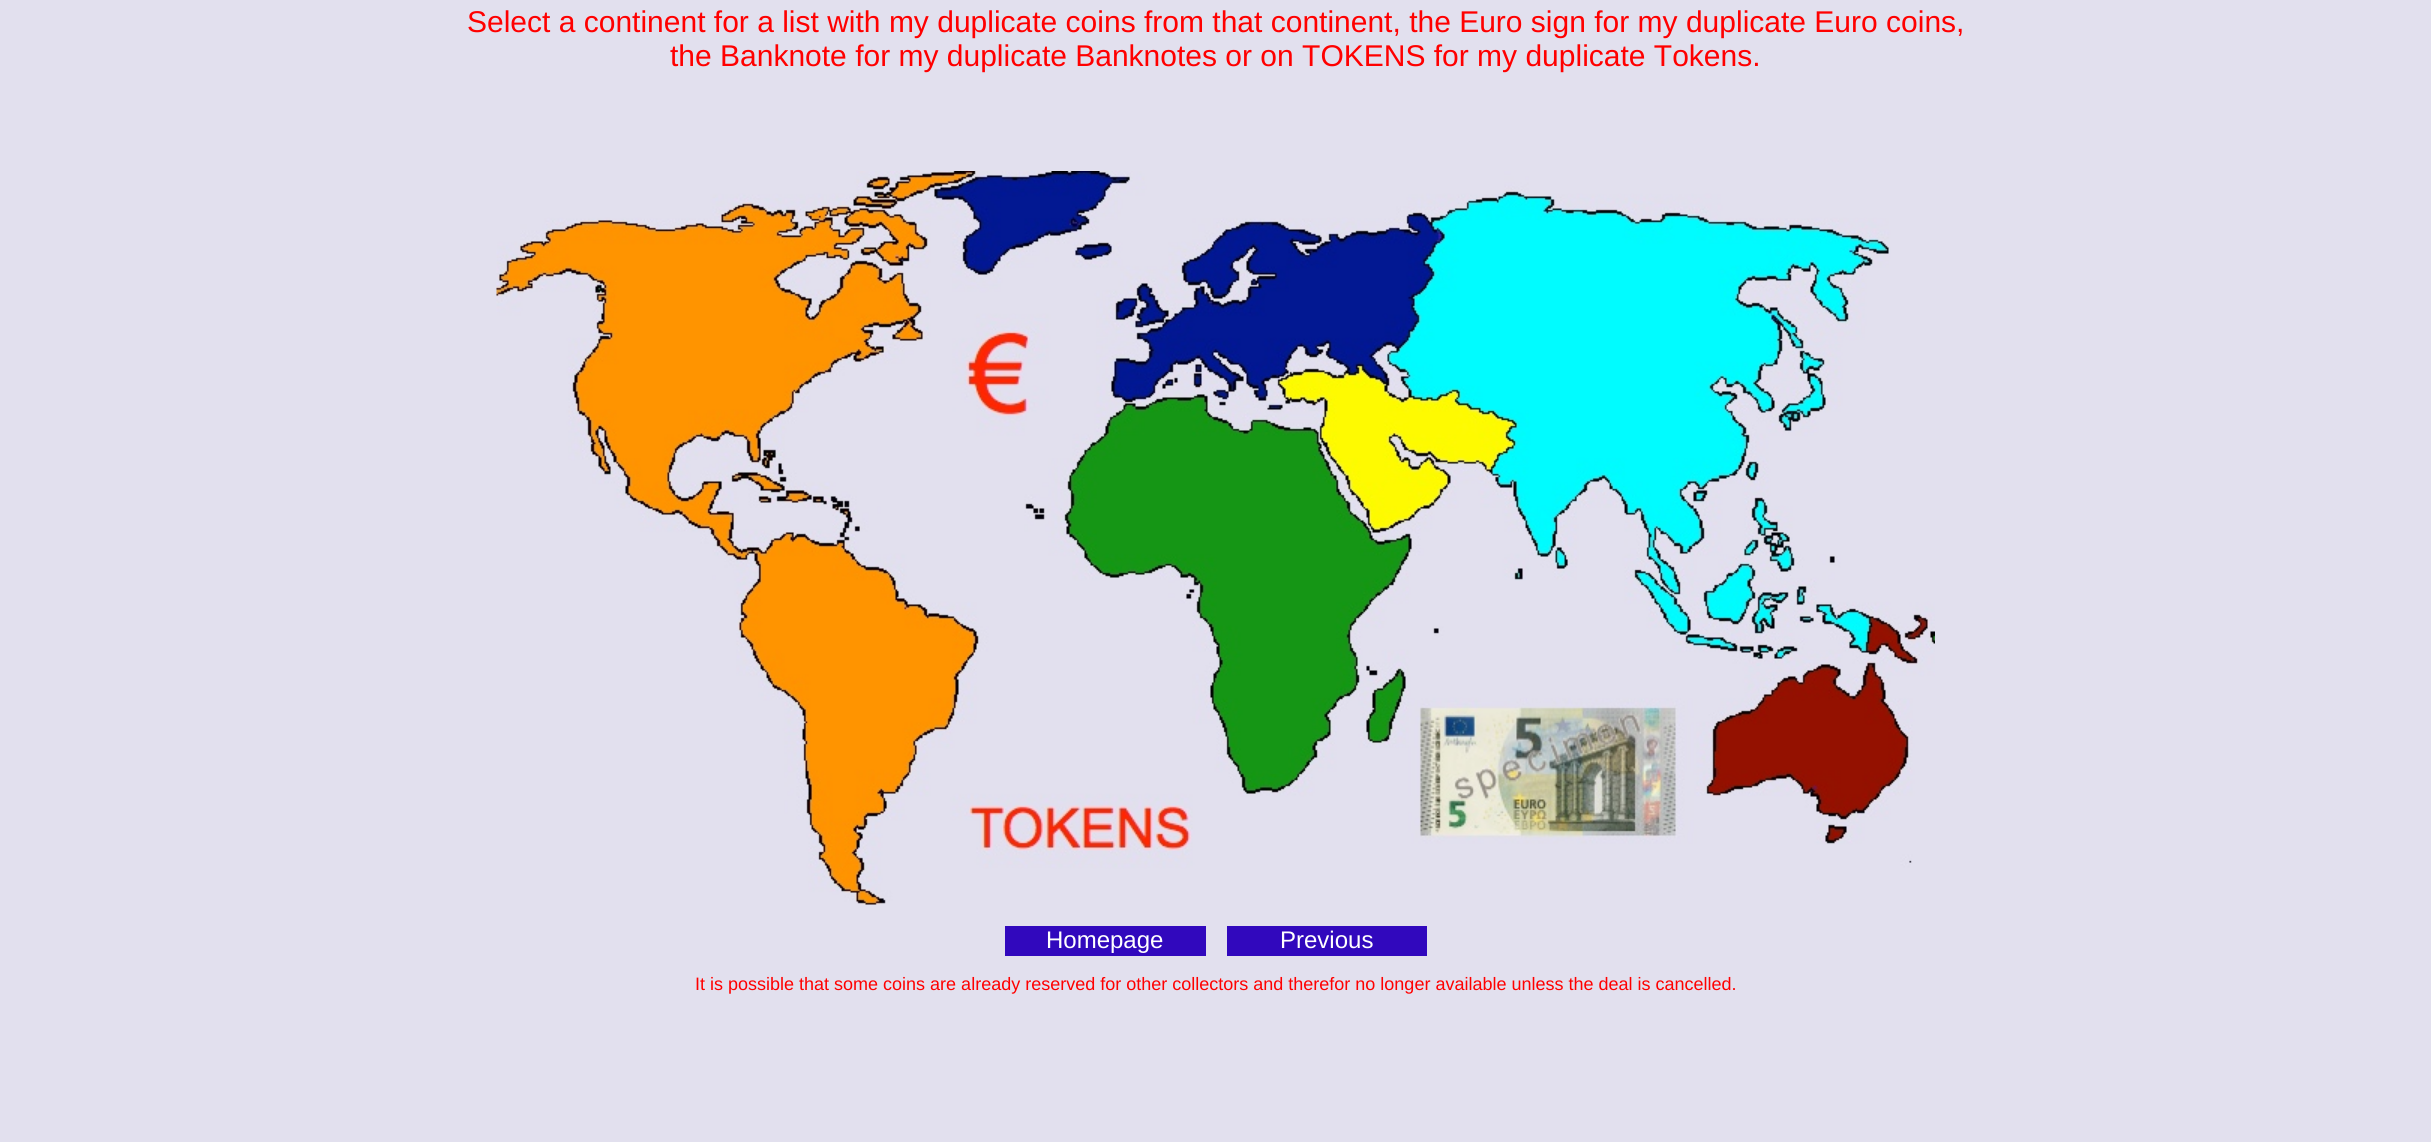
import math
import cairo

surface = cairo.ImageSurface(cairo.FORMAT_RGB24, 2431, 1142)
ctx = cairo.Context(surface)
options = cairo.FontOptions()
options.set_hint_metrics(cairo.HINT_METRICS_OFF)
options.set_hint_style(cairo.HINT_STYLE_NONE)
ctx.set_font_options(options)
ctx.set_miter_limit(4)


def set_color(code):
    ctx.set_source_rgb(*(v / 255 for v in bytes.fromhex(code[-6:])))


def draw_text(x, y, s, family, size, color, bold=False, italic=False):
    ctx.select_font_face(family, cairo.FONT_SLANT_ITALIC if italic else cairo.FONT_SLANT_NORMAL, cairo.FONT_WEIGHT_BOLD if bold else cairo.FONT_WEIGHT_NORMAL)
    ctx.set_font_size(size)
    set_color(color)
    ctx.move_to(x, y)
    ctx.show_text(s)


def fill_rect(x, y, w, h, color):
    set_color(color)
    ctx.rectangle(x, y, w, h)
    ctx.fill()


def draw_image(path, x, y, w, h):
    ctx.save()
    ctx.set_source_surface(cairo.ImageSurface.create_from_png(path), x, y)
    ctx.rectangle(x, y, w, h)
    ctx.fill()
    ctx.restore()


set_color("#e2e0ee")
ctx.paint()
draw_text(467, 32, "Select a continent for a list with my duplicate coins from that continent, the Euro sign for my duplicate Euro coins,", "Liberation Sans", 30, "#ff0000")
draw_text(670, 66, "the Banknote for my duplicate Banknotes or on TOKENS for my duplicate Tokens.", "Liberation Sans", 30, "#ff0000")
draw_image("assets/img1.png", 496, 171, 1439, 734)
fill_rect(1005, 926, 201, 30, "#3108bd")
draw_text(1046, 948, "Homepage", "Liberation Sans", 24, "#ffffff")
fill_rect(1227, 926, 200, 30, "#3108bd")
draw_text(1280, 948, "Previous", "Liberation Sans", 24, "#ffffff")
draw_text(695, 990, "It is possible that some coins are already reserved for other collectors and therefor no longer available unless the deal is cancelled.", "Liberation Sans", 18, "#ff0000")
surface.write_to_png("output.png")
